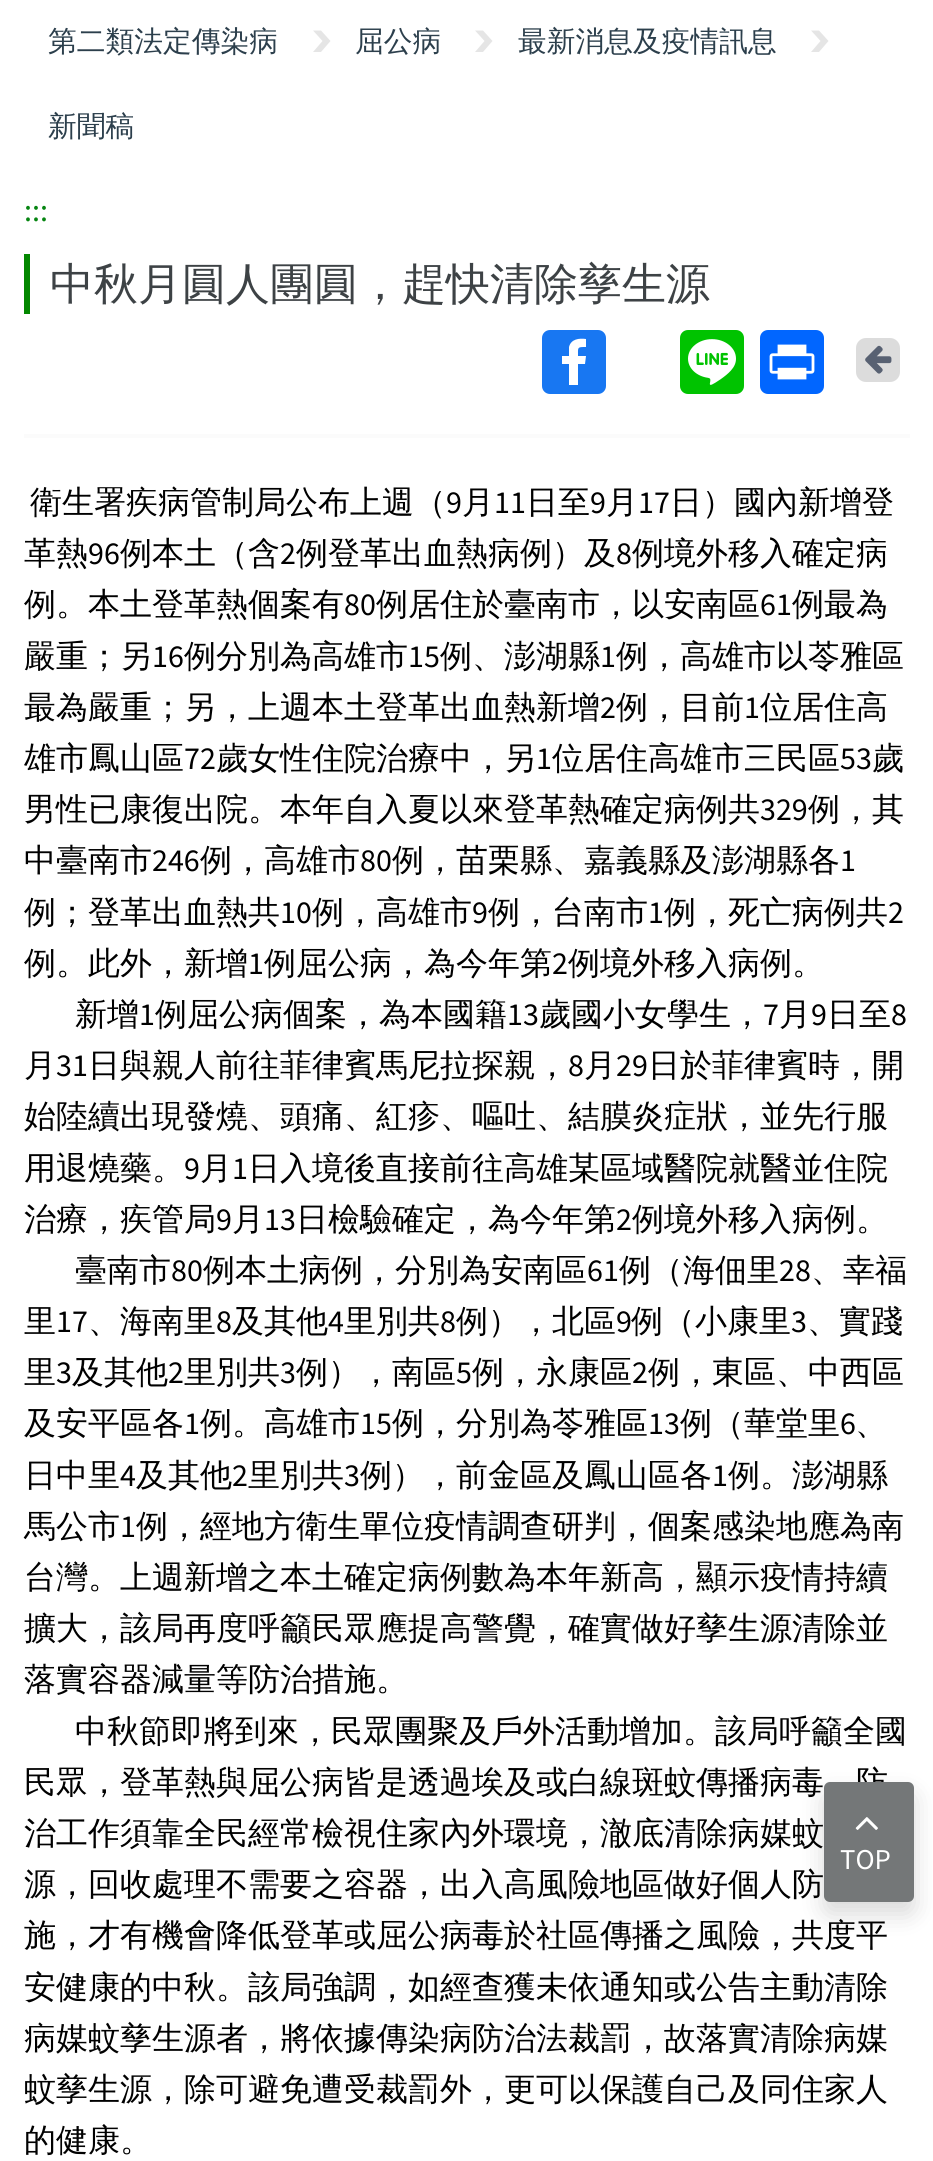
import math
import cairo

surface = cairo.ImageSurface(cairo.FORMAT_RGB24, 933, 2161)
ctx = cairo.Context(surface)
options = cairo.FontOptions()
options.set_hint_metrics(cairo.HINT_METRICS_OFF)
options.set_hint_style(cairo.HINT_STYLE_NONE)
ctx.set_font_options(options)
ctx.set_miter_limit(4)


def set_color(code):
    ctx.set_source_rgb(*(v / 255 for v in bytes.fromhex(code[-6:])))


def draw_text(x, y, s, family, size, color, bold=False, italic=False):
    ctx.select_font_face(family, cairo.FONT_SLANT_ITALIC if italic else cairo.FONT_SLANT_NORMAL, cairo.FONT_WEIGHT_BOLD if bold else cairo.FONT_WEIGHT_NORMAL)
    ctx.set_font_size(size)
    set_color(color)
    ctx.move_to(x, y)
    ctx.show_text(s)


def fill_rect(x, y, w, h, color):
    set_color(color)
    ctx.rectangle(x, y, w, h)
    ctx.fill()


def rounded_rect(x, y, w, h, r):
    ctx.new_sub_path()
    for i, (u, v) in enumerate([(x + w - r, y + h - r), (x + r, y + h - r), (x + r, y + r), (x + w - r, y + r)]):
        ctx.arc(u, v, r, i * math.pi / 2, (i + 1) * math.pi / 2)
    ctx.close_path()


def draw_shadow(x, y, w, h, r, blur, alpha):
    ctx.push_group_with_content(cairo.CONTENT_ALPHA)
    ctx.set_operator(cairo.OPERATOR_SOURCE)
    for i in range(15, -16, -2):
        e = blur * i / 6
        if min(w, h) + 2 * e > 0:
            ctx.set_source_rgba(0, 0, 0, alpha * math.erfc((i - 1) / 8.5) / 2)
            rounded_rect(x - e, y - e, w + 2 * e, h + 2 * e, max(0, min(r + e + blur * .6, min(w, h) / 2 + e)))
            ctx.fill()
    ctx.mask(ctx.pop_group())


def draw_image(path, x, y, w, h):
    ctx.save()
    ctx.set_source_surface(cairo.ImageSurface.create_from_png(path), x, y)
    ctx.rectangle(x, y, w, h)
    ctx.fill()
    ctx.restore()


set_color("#ffffff")
ctx.paint()
draw_text(48, 51, "第二類法定傳染病", "WenQuanYi Zen Hei Medium", 28.75, "#2c3f4c")
set_color("#e5e5e5")
ctx.new_path()
ctx.move_to(321, 30.5)
ctx.line_to(313, 30.5)
ctx.line_to(322.5, 41)
ctx.line_to(313, 52)
ctx.line_to(321, 52)
ctx.line_to(330.5, 41)
ctx.close_path()
ctx.fill()
draw_text(355, 51, "屈公病", "WenQuanYi Zen Hei Medium", 28.75, "#2c3f4c")
set_color("#e5e5e5")
ctx.new_path()
ctx.move_to(483, 30.5)
ctx.line_to(475, 30.5)
ctx.line_to(484.5, 41)
ctx.line_to(475, 52)
ctx.line_to(483, 52)
ctx.line_to(492.5, 41)
ctx.close_path()
ctx.fill()
draw_text(518, 51, "最新消息及疫情訊息", "WenQuanYi Zen Hei Medium", 28.75, "#2c3f4c")
set_color("#e5e5e5")
ctx.new_path()
ctx.move_to(819, 30.5)
ctx.line_to(811, 30.5)
ctx.line_to(820.5, 41)
ctx.line_to(811, 52)
ctx.line_to(819, 52)
ctx.line_to(828.5, 41)
ctx.close_path()
ctx.fill()
draw_text(48, 136, "新聞稿", "WenQuanYi Zen Hei Medium", 28.75, "#2c3f4c")
draw_text(24, 221, ":::", "Source Sans Pro", 32, "#068511")
fill_rect(24, 254, 6, 60, "#048800")
draw_text(50, 299, "中秋月圓人團圓，趕快清除孳生源", "WenQuanYi Zen Hei Medium", 44, "#3d4245")
set_color("#1877f2")
rounded_rect(542, 330, 64, 64, 8)
ctx.fill()
set_color("#ffffff")
ctx.new_path()
ctx.move_to(578, 385)
ctx.line_to(578, 364)
ctx.line_to(585, 364)
ctx.line_to(586, 356)
ctx.line_to(578, 356)
ctx.curve_to(578, 347, 577, 347, 586, 347)
ctx.line_to(586, 339)
ctx.curve_to(579, 338, 571, 339, 569, 347)
ctx.line_to(569, 356)
ctx.line_to(562, 356)
ctx.line_to(562, 364)
ctx.line_to(569, 364)
ctx.line_to(569, 385)
ctx.close_path()
ctx.fill()
set_color("#00c300")
rounded_rect(680, 330, 64, 64, 8)
ctx.fill()
draw_image("assets/img1.png", 688, 339, 48, 46)
set_color("#0166ff")
rounded_rect(760, 330, 64, 64, 8)
ctx.fill()
draw_image("assets/img2.png", 769, 344, 46, 36)
set_color("#dcdcdc")
rounded_rect(856, 338, 44, 44, 10)
ctx.fill()
draw_image("assets/img3.png", 865, 345, 27, 29)
fill_rect(24, 434, 886, 4, "#fbfbfb")
draw_text(30, 513, "衛生署疾病管制局公布上週（", "WenQuanYi Zen Hei Medium", 32, "#000000")
draw_text(446, 513, "9", "Source Sans Pro", 32, "#000000")
draw_text(462, 513, "月", "WenQuanYi Zen Hei Medium", 32, "#000000")
draw_text(494, 513, "11", "Source Sans Pro", 32, "#000000")
draw_text(526, 513, "日至", "WenQuanYi Zen Hei Medium", 32, "#000000")
draw_text(590, 513, "9", "Source Sans Pro", 32, "#000000")
draw_text(606, 513, "月", "WenQuanYi Zen Hei Medium", 32, "#000000")
draw_text(638, 513, "17", "Source Sans Pro", 32, "#000000")
draw_text(670, 513, "日）國內新增登", "WenQuanYi Zen Hei Medium", 32, "#000000")
draw_text(24, 564, "革熱", "WenQuanYi Zen Hei Medium", 32, "#000000")
draw_text(88, 564, "96", "Source Sans Pro", 32, "#000000")
draw_text(120, 564, "例本土（含", "WenQuanYi Zen Hei Medium", 32, "#000000")
draw_text(280, 564, "2", "Source Sans Pro", 32, "#000000")
draw_text(296, 564, "例登革出血熱病例）及", "WenQuanYi Zen Hei Medium", 32, "#000000")
draw_text(616, 564, "8", "Source Sans Pro", 32, "#000000")
draw_text(632, 564, "例境外移入確定病", "WenQuanYi Zen Hei Medium", 32, "#000000")
draw_text(24, 615, "例。本土登革熱個案有", "WenQuanYi Zen Hei Medium", 32, "#000000")
draw_text(344, 615, "80", "Source Sans Pro", 32, "#000000")
draw_text(376, 615, "例居住於臺南市，以安南區", "WenQuanYi Zen Hei Medium", 32, "#000000")
draw_text(760, 615, "61", "Source Sans Pro", 32, "#000000")
draw_text(792, 615, "例最為", "WenQuanYi Zen Hei Medium", 32, "#000000")
draw_text(24, 667, "嚴重；另", "WenQuanYi Zen Hei Medium", 32, "#000000")
draw_text(152, 667, "16", "Source Sans Pro", 32, "#000000")
draw_text(184, 667, "例分別為高雄市", "WenQuanYi Zen Hei Medium", 32, "#000000")
draw_text(408, 667, "15", "Source Sans Pro", 32, "#000000")
draw_text(440, 667, "例、澎湖縣", "WenQuanYi Zen Hei Medium", 32, "#000000")
draw_text(600, 667, "1", "Source Sans Pro", 32, "#000000")
draw_text(616, 667, "例，高雄市以苓雅區", "WenQuanYi Zen Hei Medium", 32, "#000000")
draw_text(24, 718, "最為嚴重；另，上週本土登革出血熱新增", "WenQuanYi Zen Hei Medium", 32, "#000000")
draw_text(600, 718, "2", "Source Sans Pro", 32, "#000000")
draw_text(616, 718, "例，目前", "WenQuanYi Zen Hei Medium", 32, "#000000")
draw_text(744, 718, "1", "Source Sans Pro", 32, "#000000")
draw_text(760, 718, "位居住高", "WenQuanYi Zen Hei Medium", 32, "#000000")
draw_text(24, 769, "雄市鳳山區", "WenQuanYi Zen Hei Medium", 32, "#000000")
draw_text(184, 769, "72", "Source Sans Pro", 32, "#000000")
draw_text(216, 769, "歲女性住院治療中，另", "WenQuanYi Zen Hei Medium", 32, "#000000")
draw_text(536, 769, "1", "Source Sans Pro", 32, "#000000")
draw_text(552, 769, "位居住高雄市三民區", "WenQuanYi Zen Hei Medium", 32, "#000000")
draw_text(840, 769, "53", "Source Sans Pro", 32, "#000000")
draw_text(872, 769, "歲", "WenQuanYi Zen Hei Medium", 32, "#000000")
draw_text(24, 820, "男性已康復出院。本年自入夏以來登革熱確定病例共", "WenQuanYi Zen Hei Medium", 32, "#000000")
draw_text(760, 820, "329", "Source Sans Pro", 32, "#000000")
draw_text(808, 820, "例，其", "WenQuanYi Zen Hei Medium", 32, "#000000")
draw_text(24, 871, "中臺南市", "WenQuanYi Zen Hei Medium", 32, "#000000")
draw_text(152, 871, "246", "Source Sans Pro", 32, "#000000")
draw_text(200, 871, "例，高雄市", "WenQuanYi Zen Hei Medium", 32, "#000000")
draw_text(360, 871, "80", "Source Sans Pro", 32, "#000000")
draw_text(392, 871, "例，苗栗縣、嘉義縣及澎湖縣各", "WenQuanYi Zen Hei Medium", 32, "#000000")
draw_text(840, 871, "1", "Source Sans Pro", 32, "#000000")
draw_text(24, 923, "例；登革出血熱共", "WenQuanYi Zen Hei Medium", 32, "#000000")
draw_text(280, 923, "10", "Source Sans Pro", 32, "#000000")
draw_text(312, 923, "例，高雄市", "WenQuanYi Zen Hei Medium", 32, "#000000")
draw_text(472, 923, "9", "Source Sans Pro", 32, "#000000")
draw_text(488, 923, "例，台南市", "WenQuanYi Zen Hei Medium", 32, "#000000")
draw_text(648, 923, "1", "Source Sans Pro", 32, "#000000")
draw_text(664, 923, "例，死亡病例共", "WenQuanYi Zen Hei Medium", 32, "#000000")
draw_text(888, 923, "2", "Source Sans Pro", 32, "#000000")
draw_text(24, 974, "例。此外，新增", "WenQuanYi Zen Hei Medium", 32, "#000000")
draw_text(248, 974, "1", "Source Sans Pro", 32, "#000000")
draw_text(264, 974, "例屈公病，為今年第", "WenQuanYi Zen Hei Medium", 32, "#000000")
draw_text(552, 974, "2", "Source Sans Pro", 32, "#000000")
draw_text(568, 974, "例境外移入病例。", "WenQuanYi Zen Hei Medium", 32, "#000000")
draw_text(75, 1025, "新增", "WenQuanYi Zen Hei Medium", 32, "#000000")
draw_text(139, 1025, "1", "Source Sans Pro", 32, "#000000")
draw_text(155, 1025, "例屈公病個案，為本國籍", "WenQuanYi Zen Hei Medium", 32, "#000000")
draw_text(507, 1025, "13", "Source Sans Pro", 32, "#000000")
draw_text(539, 1025, "歲國小女學生，", "WenQuanYi Zen Hei Medium", 32, "#000000")
draw_text(763, 1025, "7", "Source Sans Pro", 32, "#000000")
draw_text(779, 1025, "月", "WenQuanYi Zen Hei Medium", 32, "#000000")
draw_text(811, 1025, "9", "Source Sans Pro", 32, "#000000")
draw_text(827, 1025, "日至", "WenQuanYi Zen Hei Medium", 32, "#000000")
draw_text(891, 1025, "8", "Source Sans Pro", 32, "#000000")
draw_text(24, 1076, "月", "WenQuanYi Zen Hei Medium", 32, "#000000")
draw_text(56, 1076, "31", "Source Sans Pro", 32, "#000000")
draw_text(88, 1076, "日與親人前往菲律賓馬尼拉探親，", "WenQuanYi Zen Hei Medium", 32, "#000000")
draw_text(568, 1076, "8", "Source Sans Pro", 32, "#000000")
draw_text(584, 1076, "月", "WenQuanYi Zen Hei Medium", 32, "#000000")
draw_text(616, 1076, "29", "Source Sans Pro", 32, "#000000")
draw_text(648, 1076, "日於菲律賓時，開", "WenQuanYi Zen Hei Medium", 32, "#000000")
draw_text(24, 1127, "始陸續出現發燒、頭痛、紅疹、嘔吐、結膜炎症狀，並先行服", "WenQuanYi Zen Hei Medium", 32, "#000000")
draw_text(24, 1179, "用退燒藥。", "WenQuanYi Zen Hei Medium", 32, "#000000")
draw_text(184, 1179, "9", "Source Sans Pro", 32, "#000000")
draw_text(200, 1179, "月", "WenQuanYi Zen Hei Medium", 32, "#000000")
draw_text(232, 1179, "1", "Source Sans Pro", 32, "#000000")
draw_text(248, 1179, "日入境後直接前往高雄某區域醫院就醫並住院", "WenQuanYi Zen Hei Medium", 32, "#000000")
draw_text(24, 1230, "治療，疾管局", "WenQuanYi Zen Hei Medium", 32, "#000000")
draw_text(216, 1230, "9", "Source Sans Pro", 32, "#000000")
draw_text(232, 1230, "月", "WenQuanYi Zen Hei Medium", 32, "#000000")
draw_text(264, 1230, "13", "Source Sans Pro", 32, "#000000")
draw_text(296, 1230, "日檢驗確定，為今年第", "WenQuanYi Zen Hei Medium", 32, "#000000")
draw_text(616, 1230, "2", "Source Sans Pro", 32, "#000000")
draw_text(632, 1230, "例境外移入病例。", "WenQuanYi Zen Hei Medium", 32, "#000000")
draw_text(75, 1281, "臺南市", "WenQuanYi Zen Hei Medium", 32, "#000000")
draw_text(171, 1281, "80", "Source Sans Pro", 32, "#000000")
draw_text(203, 1281, "例本土病例，分別為安南區", "WenQuanYi Zen Hei Medium", 32, "#000000")
draw_text(587, 1281, "61", "Source Sans Pro", 32, "#000000")
draw_text(619, 1281, "例（海佃里", "WenQuanYi Zen Hei Medium", 32, "#000000")
draw_text(779, 1281, "28", "Source Sans Pro", 32, "#000000")
draw_text(811, 1281, "、幸福", "WenQuanYi Zen Hei Medium", 32, "#000000")
draw_text(24, 1332, "里", "WenQuanYi Zen Hei Medium", 32, "#000000")
draw_text(56, 1332, "17", "Source Sans Pro", 32, "#000000")
draw_text(88, 1332, "、海南里", "WenQuanYi Zen Hei Medium", 32, "#000000")
draw_text(216, 1332, "8", "Source Sans Pro", 32, "#000000")
draw_text(232, 1332, "及其他", "WenQuanYi Zen Hei Medium", 32, "#000000")
draw_text(328, 1332, "4", "Source Sans Pro", 32, "#000000")
draw_text(344, 1332, "里別共", "WenQuanYi Zen Hei Medium", 32, "#000000")
draw_text(440, 1332, "8", "Source Sans Pro", 32, "#000000")
draw_text(456, 1332, "例），北區", "WenQuanYi Zen Hei Medium", 32, "#000000")
draw_text(616, 1332, "9", "Source Sans Pro", 32, "#000000")
draw_text(631, 1332, "例（小康里", "WenQuanYi Zen Hei Medium", 32, "#000000")
draw_text(791, 1332, "3", "Source Sans Pro", 32, "#000000")
draw_text(807, 1332, "、實踐", "WenQuanYi Zen Hei Medium", 32, "#000000")
draw_text(24, 1383, "里", "WenQuanYi Zen Hei Medium", 32, "#000000")
draw_text(56, 1383, "3", "Source Sans Pro", 32, "#000000")
draw_text(72, 1383, "及其他", "WenQuanYi Zen Hei Medium", 32, "#000000")
draw_text(168, 1383, "2", "Source Sans Pro", 32, "#000000")
draw_text(184, 1383, "里別共", "WenQuanYi Zen Hei Medium", 32, "#000000")
draw_text(280, 1383, "3", "Source Sans Pro", 32, "#000000")
draw_text(296, 1383, "例），南區", "WenQuanYi Zen Hei Medium", 32, "#000000")
draw_text(456, 1383, "5", "Source Sans Pro", 32, "#000000")
draw_text(472, 1383, "例，永康區", "WenQuanYi Zen Hei Medium", 32, "#000000")
draw_text(632, 1383, "2", "Source Sans Pro", 32, "#000000")
draw_text(648, 1383, "例，東區、中西區", "WenQuanYi Zen Hei Medium", 32, "#000000")
draw_text(24, 1434, "及安平區各", "WenQuanYi Zen Hei Medium", 32, "#000000")
draw_text(184, 1434, "1", "Source Sans Pro", 32, "#000000")
draw_text(200, 1434, "例。高雄市", "WenQuanYi Zen Hei Medium", 32, "#000000")
draw_text(360, 1434, "15", "Source Sans Pro", 32, "#000000")
draw_text(392, 1434, "例，分別為苓雅區", "WenQuanYi Zen Hei Medium", 32, "#000000")
draw_text(648, 1434, "13", "Source Sans Pro", 32, "#000000")
draw_text(680, 1434, "例（華堂里", "WenQuanYi Zen Hei Medium", 32, "#000000")
draw_text(840, 1434, "6", "Source Sans Pro", 32, "#000000")
draw_text(855, 1434, "、", "WenQuanYi Zen Hei Medium", 32, "#000000")
draw_text(24, 1486, "日中里", "WenQuanYi Zen Hei Medium", 32, "#000000")
draw_text(120, 1486, "4", "Source Sans Pro", 32, "#000000")
draw_text(136, 1486, "及其他", "WenQuanYi Zen Hei Medium", 32, "#000000")
draw_text(232, 1486, "2", "Source Sans Pro", 32, "#000000")
draw_text(248, 1486, "里別共", "WenQuanYi Zen Hei Medium", 32, "#000000")
draw_text(344, 1486, "3", "Source Sans Pro", 32, "#000000")
draw_text(360, 1486, "例），前金區及鳳山區各", "WenQuanYi Zen Hei Medium", 32, "#000000")
draw_text(712, 1486, "1", "Source Sans Pro", 32, "#000000")
draw_text(728, 1486, "例。澎湖縣", "WenQuanYi Zen Hei Medium", 32, "#000000")
draw_text(24, 1537, "馬公市", "WenQuanYi Zen Hei Medium", 32, "#000000")
draw_text(120, 1537, "1", "Source Sans Pro", 32, "#000000")
draw_text(136, 1537, "例，經地方衛生單位疫情調查研判，個案感染地應為南", "WenQuanYi Zen Hei Medium", 32, "#000000")
draw_text(24, 1588, "台灣。上週新增之本土確定病例數為本年新高，顯示疫情持續", "WenQuanYi Zen Hei Medium", 32, "#000000")
draw_text(24, 1639, "擴大，該局再度呼籲民眾應提高警覺，確實做好孳生源清除並", "WenQuanYi Zen Hei Medium", 32, "#000000")
draw_text(24, 1690, "落實容器減量等防治措施。", "WenQuanYi Zen Hei Medium", 32, "#000000")
draw_text(75, 1742, "中秋節即將到來，民眾團聚及戶外活動增加。該局呼籲全國", "WenQuanYi Zen Hei Medium", 32, "#000000")
draw_text(24, 1793, "民眾，登革熱與屈公病皆是透過埃及或白線斑蚊傳播病毒，防", "WenQuanYi Zen Hei Medium", 32, "#000000")
draw_text(24, 1844, "治工作須靠全民經常檢視住家內外環境，澈底清除病媒蚊", "WenQuanYi Zen Hei Medium", 32, "#000000")
draw_text(24, 1895, "源，回收處理不需要之容器，出入高風險地區做好個人防", "WenQuanYi Zen Hei Medium", 32, "#000000")
draw_text(24, 1946, "施，才有機會降低登革或屈公病毒於社區傳播之風險，共度平", "WenQuanYi Zen Hei Medium", 32, "#000000")
draw_text(24, 1998, "安健康的中秋。該局強調，如經查獲未依通知或公告主動清除", "WenQuanYi Zen Hei Medium", 32, "#000000")
draw_text(24, 2049, "病媒蚊孳生源者，將依據傳染病防治法裁罰，故落實清除病媒", "WenQuanYi Zen Hei Medium", 32, "#000000")
draw_text(24, 2100, "蚊孳生源，除可避免遭受裁罰外，更可以保護自己及同住家人", "WenQuanYi Zen Hei Medium", 32, "#000000")
draw_text(24, 2151, "的健康。", "WenQuanYi Zen Hei Medium", 32, "#000000")
set_color("#000000")
draw_shadow(824, 1794, 90, 120, 6, 12, 0.15)
set_color("#747778")
rounded_rect(824, 1782, 90, 120, 6)
ctx.fill()
draw_image("assets/img4.png", 855, 1817, 23, 13)
draw_text(840, 1869, "TOP", "Source Sans Pro", 28.75, "#ffffff")
surface.write_to_png("output.png")
